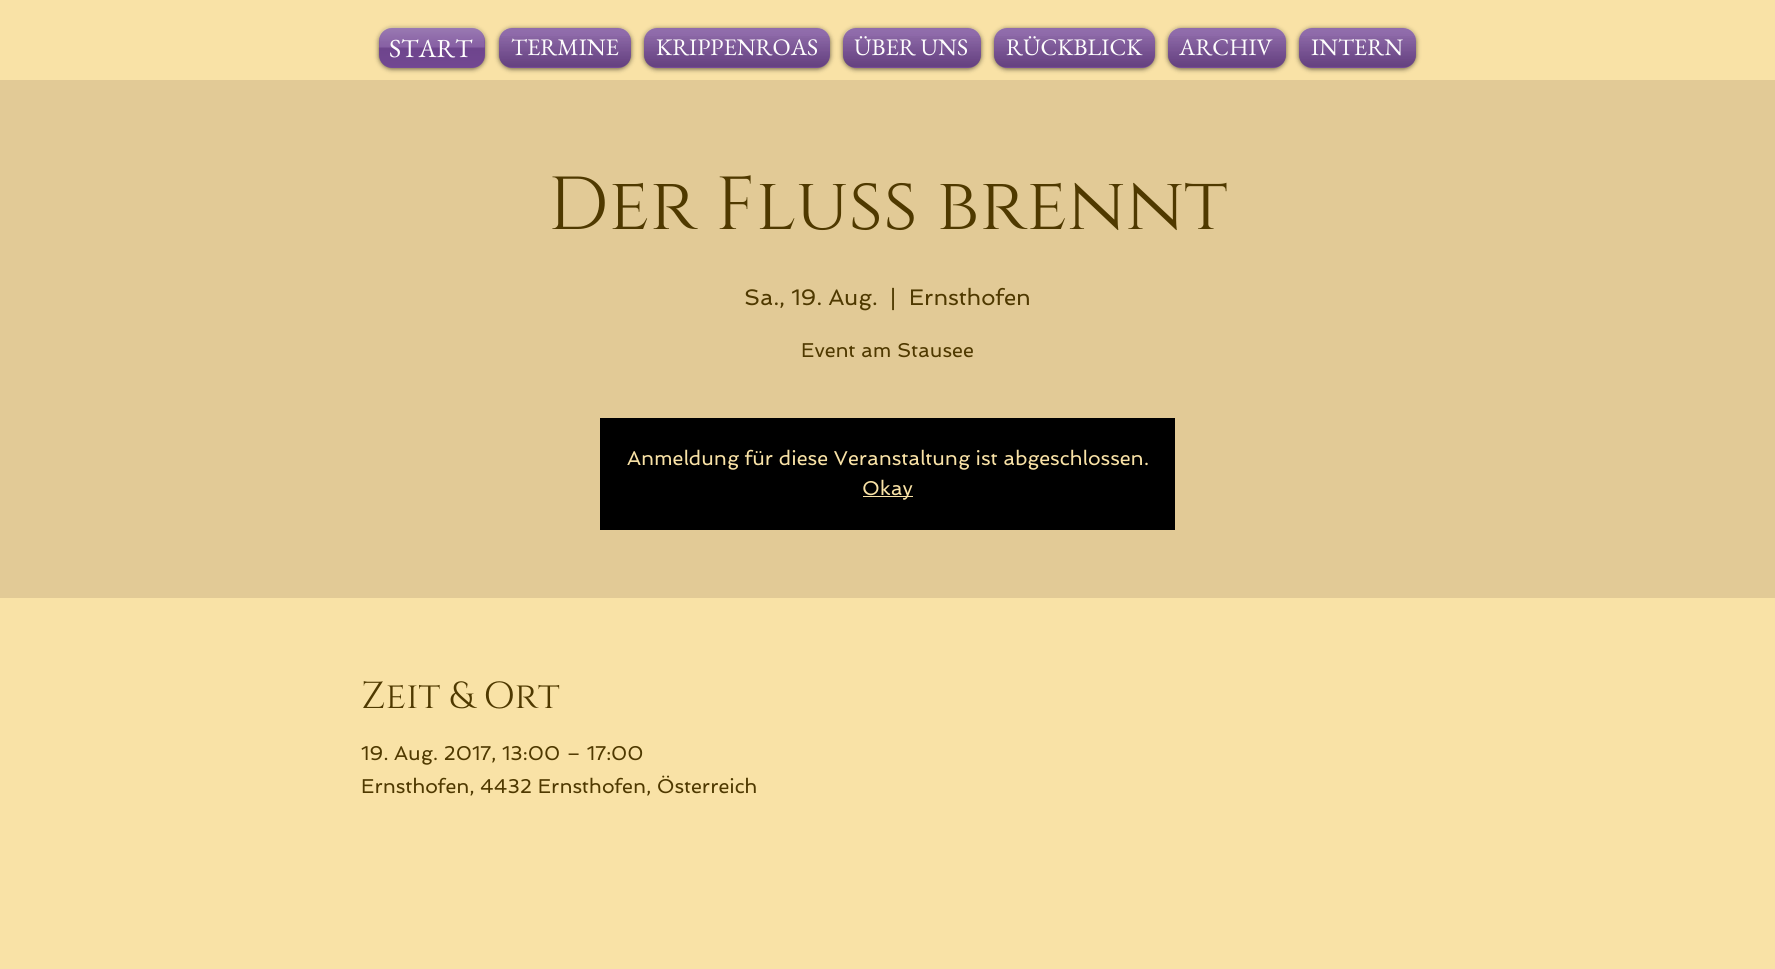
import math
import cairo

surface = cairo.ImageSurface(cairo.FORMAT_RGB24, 1775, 969)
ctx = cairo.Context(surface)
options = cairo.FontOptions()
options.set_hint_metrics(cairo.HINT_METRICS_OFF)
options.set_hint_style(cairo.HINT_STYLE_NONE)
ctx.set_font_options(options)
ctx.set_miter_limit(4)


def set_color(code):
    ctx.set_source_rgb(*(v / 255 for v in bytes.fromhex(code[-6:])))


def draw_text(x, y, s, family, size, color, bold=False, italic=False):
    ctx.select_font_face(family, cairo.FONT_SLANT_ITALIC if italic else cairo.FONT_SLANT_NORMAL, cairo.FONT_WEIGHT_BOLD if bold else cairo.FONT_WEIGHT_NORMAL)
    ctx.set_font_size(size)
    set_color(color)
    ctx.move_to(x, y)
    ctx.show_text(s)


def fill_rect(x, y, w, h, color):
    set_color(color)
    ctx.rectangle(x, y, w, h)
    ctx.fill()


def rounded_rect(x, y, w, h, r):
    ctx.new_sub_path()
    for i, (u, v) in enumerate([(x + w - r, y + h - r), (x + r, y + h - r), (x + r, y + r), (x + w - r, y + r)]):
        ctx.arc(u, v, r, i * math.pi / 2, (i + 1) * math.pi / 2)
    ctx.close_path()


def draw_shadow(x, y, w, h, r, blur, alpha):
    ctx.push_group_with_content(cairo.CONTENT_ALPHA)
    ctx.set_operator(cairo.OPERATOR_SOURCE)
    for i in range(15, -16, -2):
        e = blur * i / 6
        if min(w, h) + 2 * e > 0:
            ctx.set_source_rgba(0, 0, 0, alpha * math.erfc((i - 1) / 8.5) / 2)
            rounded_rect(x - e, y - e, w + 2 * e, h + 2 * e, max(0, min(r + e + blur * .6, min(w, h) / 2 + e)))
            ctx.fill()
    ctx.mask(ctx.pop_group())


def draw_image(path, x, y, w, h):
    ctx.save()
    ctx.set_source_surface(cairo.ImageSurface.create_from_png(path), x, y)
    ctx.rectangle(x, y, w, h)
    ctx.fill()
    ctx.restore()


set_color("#f9e2a6")
ctx.paint()
set_color("#000000")
draw_shadow(379, 29, 106, 40, 13, 2.5, 0.6)
set_color("#764a97")
rounded_rect(379, 28, 106, 40, 13)
ctx.fill()
draw_image("assets/img1.png", 378, 27, 107, 40)
draw_text(389, 57, "START", "EB Garamond", 26, "#fefdfd")
set_color("#000000")
draw_shadow(499, 29, 132, 40, 13, 2.5, 0.6)
set_color("#764a97")
rounded_rect(499, 28, 132, 40, 13)
ctx.fill()
draw_image("assets/img2.png", 499, 28, 132, 39)
draw_image("assets/img3.png", 499, 36, 132, 31)
draw_text(511, 55, "TERMINE", "EB Garamond", 23.75, "#fefdfd")
set_color("#000000")
draw_shadow(644, 29, 186, 40, 13, 2.5, 0.6)
set_color("#764a97")
rounded_rect(644, 28, 186, 40, 13)
ctx.fill()
draw_image("assets/img4.png", 644, 28, 186, 39)
draw_image("assets/img5.png", 644, 36, 186, 31)
draw_text(656, 55, "KRIPPENROAS", "EB Garamond", 23.75, "#fefdfd")
set_color("#000000")
draw_shadow(843, 29, 138, 40, 13, 2.5, 0.6)
set_color("#764a97")
rounded_rect(843, 28, 138, 40, 13)
ctx.fill()
draw_image("assets/img6.png", 843, 28, 138, 39)
draw_image("assets/img7.png", 843, 36, 138, 31)
draw_text(854, 55, "ÜBER UNS", "EB Garamond", 23.75, "#fefdfd")
set_color("#000000")
draw_shadow(994, 29, 161, 40, 13, 2.5, 0.6)
set_color("#764a97")
rounded_rect(994, 28, 161, 40, 13)
ctx.fill()
draw_image("assets/img8.png", 994, 28, 161, 39)
draw_image("assets/img9.png", 994, 36, 161, 31)
draw_text(1006, 55, "RÜCKBLICK", "EB Garamond", 23.75, "#fefdfd")
set_color("#000000")
draw_shadow(1168, 29, 118, 40, 13, 2.5, 0.6)
set_color("#764a97")
rounded_rect(1168, 28, 118, 40, 13)
ctx.fill()
draw_image("assets/img10.png", 1168, 28, 118, 39)
draw_image("assets/img11.png", 1168, 36, 118, 31)
draw_text(1179, 55, "ARCHIV", "EB Garamond", 23.75, "#fefdfd")
set_color("#000000")
draw_shadow(1299, 29, 117, 40, 13, 2.5, 0.6)
set_color("#764a97")
rounded_rect(1299, 28, 117, 40, 13)
ctx.fill()
draw_image("assets/img12.png", 1299, 28, 117, 39)
draw_image("assets/img13.png", 1299, 36, 117, 31)
draw_text(1311, 55, "INTERN", "EB Garamond", 23.75, "#fefdfd")
fill_rect(0, 80, 1775, 518, "#e2ca96")
draw_text(548, 229, "Der Fluss brennt", "Cinzel", 75, "#4f3900")
draw_text(744, 305, "Sa., 19. Aug.", "Spinnaker", 22.5, "#4f3900")
draw_text(890, 305, "|", "Spinnaker", 22.5, "#4f3900")
draw_text(909, 305, "Ernsthofen", "Spinnaker", 22.5, "#4f3900")
draw_text(801, 357, "Event am Stausee", "Spinnaker", 20, "#4f3900")
fill_rect(600, 418, 575, 112, "#000000")
draw_text(627, 465, "Anmeldung für diese Veranstaltung ist abgeschlossen.", "Spinnaker", 20, "#f9e2a6")
fill_rect(863, 496, 50, 1, "#f9e2a6")
draw_text(862, 495, "Okay", "Spinnaker", 20, "#f9e2a6")
draw_text(361, 708, "Zeit & Ort", "Cinzel", 37.5, "#4f3900")
draw_text(361, 760, "19. Aug. 2017, 13:00 – 17:00", "Spinnaker", 20, "#4f3900")
draw_text(361, 793, "Ernsthofen, 4432 Ernsthofen, Österreich", "Spinnaker", 20, "#4f3900")
surface.write_to_png("output.png")
